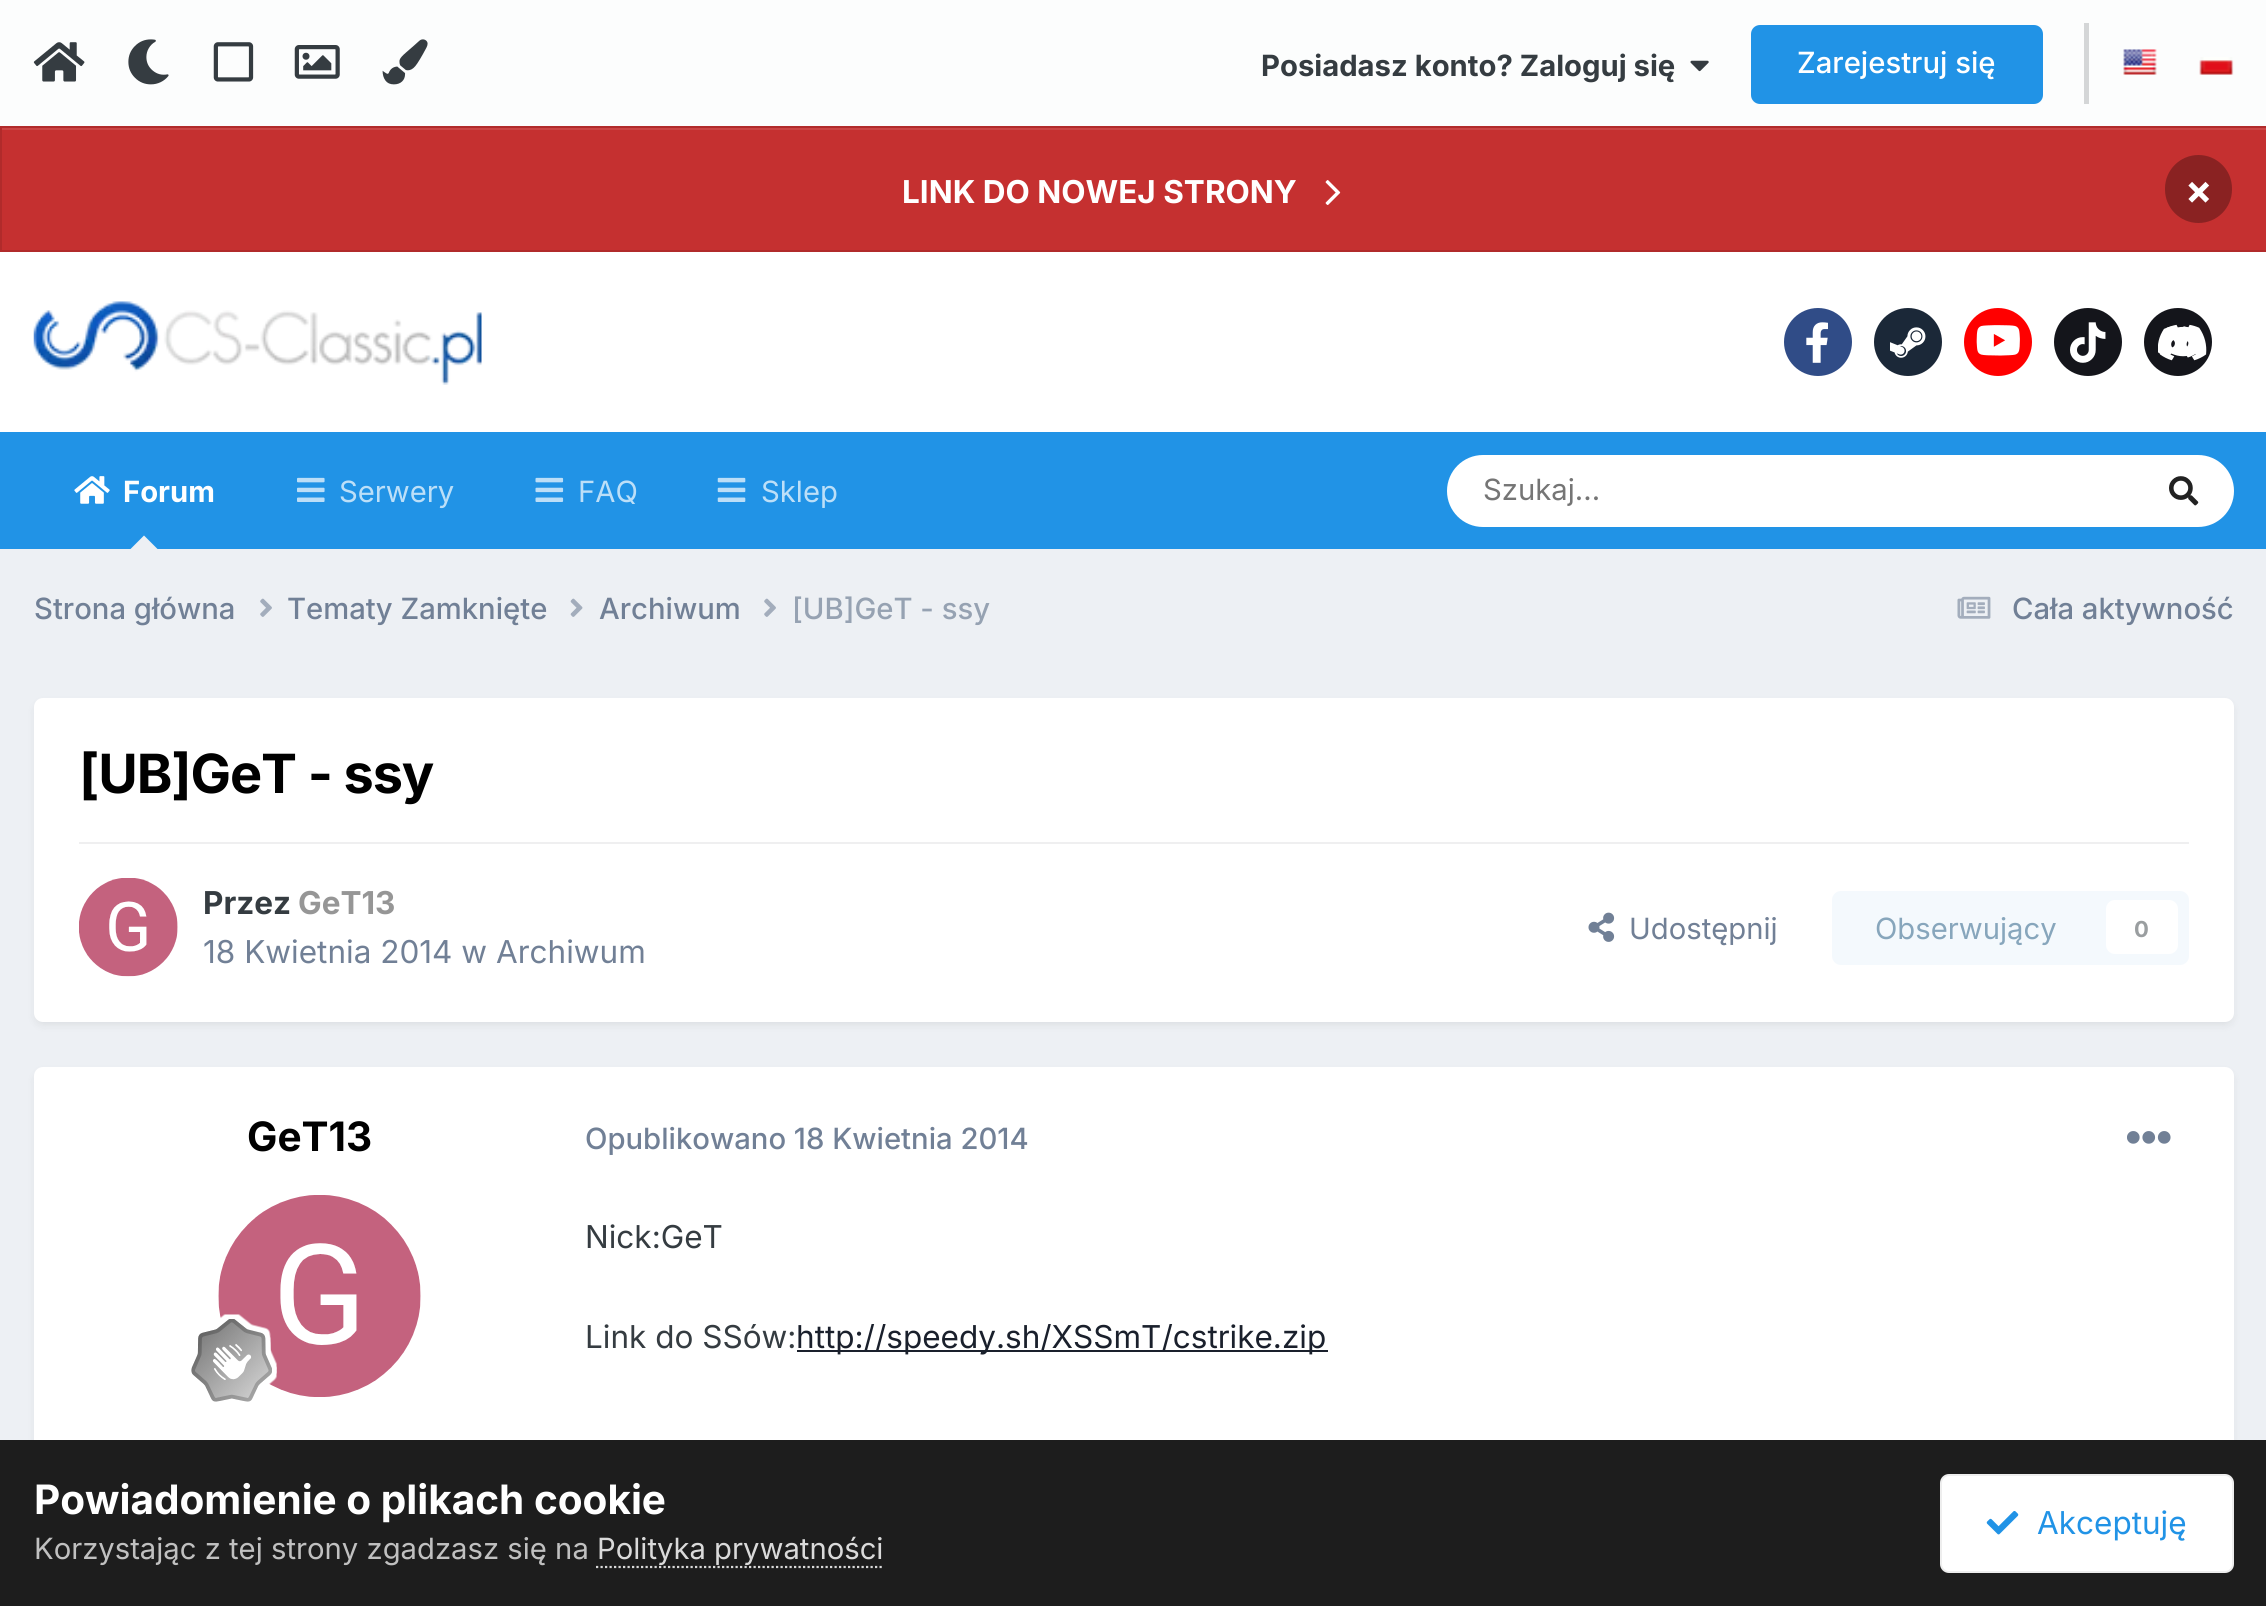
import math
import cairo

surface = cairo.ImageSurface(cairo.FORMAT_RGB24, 2266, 1606)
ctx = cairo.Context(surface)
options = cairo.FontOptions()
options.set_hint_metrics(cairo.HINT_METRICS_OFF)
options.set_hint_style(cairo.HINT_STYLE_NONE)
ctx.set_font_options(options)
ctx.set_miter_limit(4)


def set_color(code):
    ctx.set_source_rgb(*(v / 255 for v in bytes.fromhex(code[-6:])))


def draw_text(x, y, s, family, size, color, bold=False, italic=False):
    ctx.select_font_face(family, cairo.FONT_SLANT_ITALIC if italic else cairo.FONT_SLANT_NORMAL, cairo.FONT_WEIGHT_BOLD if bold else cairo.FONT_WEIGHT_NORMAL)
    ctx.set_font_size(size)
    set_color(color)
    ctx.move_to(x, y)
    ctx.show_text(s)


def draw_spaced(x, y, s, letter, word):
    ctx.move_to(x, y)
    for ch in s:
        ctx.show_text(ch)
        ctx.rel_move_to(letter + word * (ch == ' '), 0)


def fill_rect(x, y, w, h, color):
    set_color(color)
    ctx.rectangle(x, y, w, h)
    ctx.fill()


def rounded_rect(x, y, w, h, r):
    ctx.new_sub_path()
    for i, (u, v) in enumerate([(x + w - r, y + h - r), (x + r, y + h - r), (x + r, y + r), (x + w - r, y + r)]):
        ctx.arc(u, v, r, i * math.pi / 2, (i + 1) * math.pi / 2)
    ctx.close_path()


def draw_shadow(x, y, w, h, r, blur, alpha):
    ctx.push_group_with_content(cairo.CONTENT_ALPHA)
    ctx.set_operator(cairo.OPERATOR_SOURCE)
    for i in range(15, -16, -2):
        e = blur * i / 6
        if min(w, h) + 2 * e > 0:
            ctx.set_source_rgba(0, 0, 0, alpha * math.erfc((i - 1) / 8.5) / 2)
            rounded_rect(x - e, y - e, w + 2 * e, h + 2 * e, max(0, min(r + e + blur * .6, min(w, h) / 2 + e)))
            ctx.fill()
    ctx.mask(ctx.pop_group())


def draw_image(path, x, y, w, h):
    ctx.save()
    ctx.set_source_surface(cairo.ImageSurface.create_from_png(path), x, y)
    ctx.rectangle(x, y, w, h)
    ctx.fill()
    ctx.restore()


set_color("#edf0f4")
ctx.paint()
fill_rect(0, 0, 2266, 126, "#fcfdfd")
draw_image("assets/img1.png", 33, 42, 52, 40)
draw_image("assets/img2.png", 128, 39, 41, 46)
draw_image("assets/img3.png", 213, 42, 41, 40)
draw_image("assets/img4.png", 294, 45, 46, 34)
draw_image("assets/img5.png", 382, 39, 46, 46)
draw_text(1261, 76, "Posiadasz konto? Zaloguj się", "Inter", 29.25, "#353c41", bold=True)
draw_image("assets/img6.png", 1690, 60, 19, 12)
set_color("#2193e6")
rounded_rect(1751, 25, 292, 79, 9)
ctx.fill()
draw_text(1797, 73, "Zarejestruj się", "Inter Medium", 29.25, "#ffffff")
fill_rect(2084, 23, 5, 81, "#d4d6d7")
draw_image("assets/img7.png", 2123, 49, 34, 26)
draw_image("assets/img8.png", 2199, 57, 35, 18)
fill_rect(2, 130, 2264, 120, "#c53030")
fill_rect(2, 128, 2264, 2, "#cb4545")
ctx.rectangle(1, 127, 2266, 124)
set_color("#b12b2b")
ctx.stroke()
draw_text(902, 203, "LINK DO NOWEJ STRONY", "Inter", 31.5, "#ffffff", bold=True)
draw_image("assets/img9.png", 1325, 180, 16, 25)
set_color("#8a2222")
rounded_rect(2165, 155, 67, 68, 33.5)
ctx.fill()
draw_text(2185, 204, "×", "Inter", 40.5, "#ffffff", bold=True)
fill_rect(0, 252, 2266, 180, "#ffffff")
draw_image("assets/img10.png", 33, 301, 449, 84)
set_color("#304c87")
ctx.arc(1818, 342, 34, 0, 2 * math.pi)
ctx.fill()
draw_image("assets/img11.png", 1806, 322, 22, 41)
set_color("#1b2838")
ctx.arc(1908, 342, 34, 0, 2 * math.pi)
ctx.fill()
draw_image("assets/img12.png", 1890, 327, 36, 31)
set_color("#ff0000")
ctx.arc(1998, 342, 34, 0, 2 * math.pi)
ctx.fill()
draw_image("assets/img13.png", 1976, 325, 44, 31)
set_color("#14151b")
ctx.arc(2088, 342, 34, 0, 2 * math.pi)
ctx.fill()
draw_image("assets/img14.png", 2070, 322, 36, 41)
ctx.arc(2178, 342, 34, 0, 2 * math.pi)
ctx.fill()
draw_image("assets/img15.png", 2158, 326, 38, 32)
draw_image("assets/img16.png", 2159, 324, 48, 37)
fill_rect(0, 432, 2266, 117, "#2193e6")
draw_image("assets/img17.png", 74, 476, 36, 28)
draw_text(123, 502, "Forum", "Inter", 29.25, "#ffffff", bold=True)
set_color("#edf0f4")
ctx.new_path()
ctx.move_to(157.5, 549)
ctx.line_to(130.5, 549)
ctx.line_to(144, 535.5)
ctx.close_path()
ctx.fill()
draw_image("assets/img18.png", 297, 477, 28, 25)
draw_text(339, 502, "Serwery", "Inter", 29.25, "#bcdff8")
draw_image("assets/img19.png", 535, 477, 29, 25)
draw_text(578, 502, "FAQ", "Inter", 29.25, "#bcdff8")
draw_image("assets/img20.png", 717, 477, 29, 25)
draw_text(761, 502, "Sklep", "Inter", 29.25, "#bcdff8")
set_color("#ffffff")
rounded_rect(1447, 455, 787, 72, 36)
ctx.fill()
draw_text(1483, 500, "Szukaj...", "Inter", 29.25, "#757575")
draw_image("assets/img21.png", 2169, 476, 30, 30)
draw_text(34, 619, "Strona główna", "Inter Medium", 29.25, "#718096")
draw_image("assets/img22.png", 260, 598, 12, 19)
draw_text(287, 619, "Tematy Zamknięte", "Inter Medium", 29.25, "#718096")
draw_image("assets/img23.png", 570, 598, 13, 19)
draw_text(599, 619, "Archiwum", "Inter Medium", 29.25, "#718096")
draw_image("assets/img22.png", 764, 598, 12, 19)
draw_text(792, 619, "[UB]GeT - ssy", "Inter Medium", 29.25, "#96a2b2")
draw_image("assets/img24.png", 1957, 596, 34, 23)
draw_text(2012, 619, "Cała aktywność", "Inter Medium", 29.25, "#718096")
set_color("#1d1d1d")
draw_shadow(36, 704, 2196, 320, 7, 4.5, 0.1)
set_color("#ffffff")
rounded_rect(34, 698, 2200, 324, 9)
ctx.fill()
ctx.select_font_face("Inter", cairo.FONT_SLANT_NORMAL, cairo.FONT_WEIGHT_BOLD)
ctx.set_font_size(54)
set_color("#000000")
draw_spaced(79, 793, "[UB]GeT - ssy", -1.1, 0)
fill_rect(79, 842, 2110, 2, "#efeff0")
draw_image("assets/img25.png", 79, 878, 99, 99)
draw_text(203, 914, "Przez", "Inter", 31.5, "#353c41", bold=True)
draw_text(298, 914, "GeT13", "Inter", 31.5, "#969696", bold=True)
draw_text(203, 963, "18 Kwietnia 2014 w Archiwum", "Inter", 31.5, "#718096")
draw_image("assets/img26.png", 1588, 912, 27, 30)
draw_text(1629, 939, "Udostępnij", "Inter", 29.25, "#718096")
set_color("#f4f9fd")
rounded_rect(1832, 891, 357, 74, 9)
ctx.fill()
draw_text(1875, 939, "Obserwujący", "Inter", 29.25, "#87a6bc")
set_color("#ffffff")
rounded_rect(2106, 900, 72, 54, 9)
ctx.fill()
draw_text(2134, 937, "0", "Inter", 22, "#9a9ea0", bold=True)
set_color("#1d1d1d")
draw_shadow(36, 1073, 2196, 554, 7, 4.5, 0.1)
set_color("#ffffff")
rounded_rect(34, 1067, 2200, 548, 9)
ctx.fill()
draw_text(247, 1151, "GeT13", "Inter", 40.5, "#000000", bold=True)
draw_image("assets/img27.png", 218, 1195, 203, 202)
draw_image("assets/img28.png", 191, 1314, 86, 88)
draw_text(585, 1149, "Opublikowano 18 Kwietnia 2014", "Inter Medium", 29.25, "#718096")
draw_image("assets/img29.png", 2127, 1131, 44, 13)
draw_text(585, 1248, "Nick:GeT", "Inter", 31.5, "#353c41")
draw_text(585, 1348, "Link do SSów:", "Inter", 31.5, "#353c41")
fill_rect(797, 1350, 531, 2, "#1a202c")
draw_text(796, 1348, "http://speedy.sh/XSSmT/cstrike.zip", "Inter", 31.5, "#1a202c")
fill_rect(0, 1440, 2266, 166, "#1d1d1d")
draw_text(34, 1514, "Powiadomienie o plikach cookie", "Inter", 40.5, "#ffffff", bold=True)
draw_text(34, 1559, "Korzystając z tej strony zgadzasz się na", "Inter", 29.25, "#c0c0c0")
ctx.new_path()
ctx.move_to(596, 1567)
ctx.line_to(884, 1567)
set_color("#dadada")
ctx.set_line_width(2.2)
ctx.set_dash([2.25, 2.25])
ctx.stroke()
draw_text(597, 1559, "Polityka prywatności", "Inter", 29.25, "#dadada")
set_color("#ffffff")
rounded_rect(1940, 1474, 294, 99, 9)
ctx.fill()
rounded_rect(1941, 1475, 292, 97, 8)
ctx.set_source_rgba(0, 0, 0, 0.07)
ctx.set_line_width(2)
ctx.set_dash([])
ctx.stroke()
draw_image("assets/img30.png", 1986, 1511, 33, 24)
draw_text(2037, 1534, "Akceptuję", "Inter", 31.5, "#2193e6")
surface.write_to_png("output.png")
